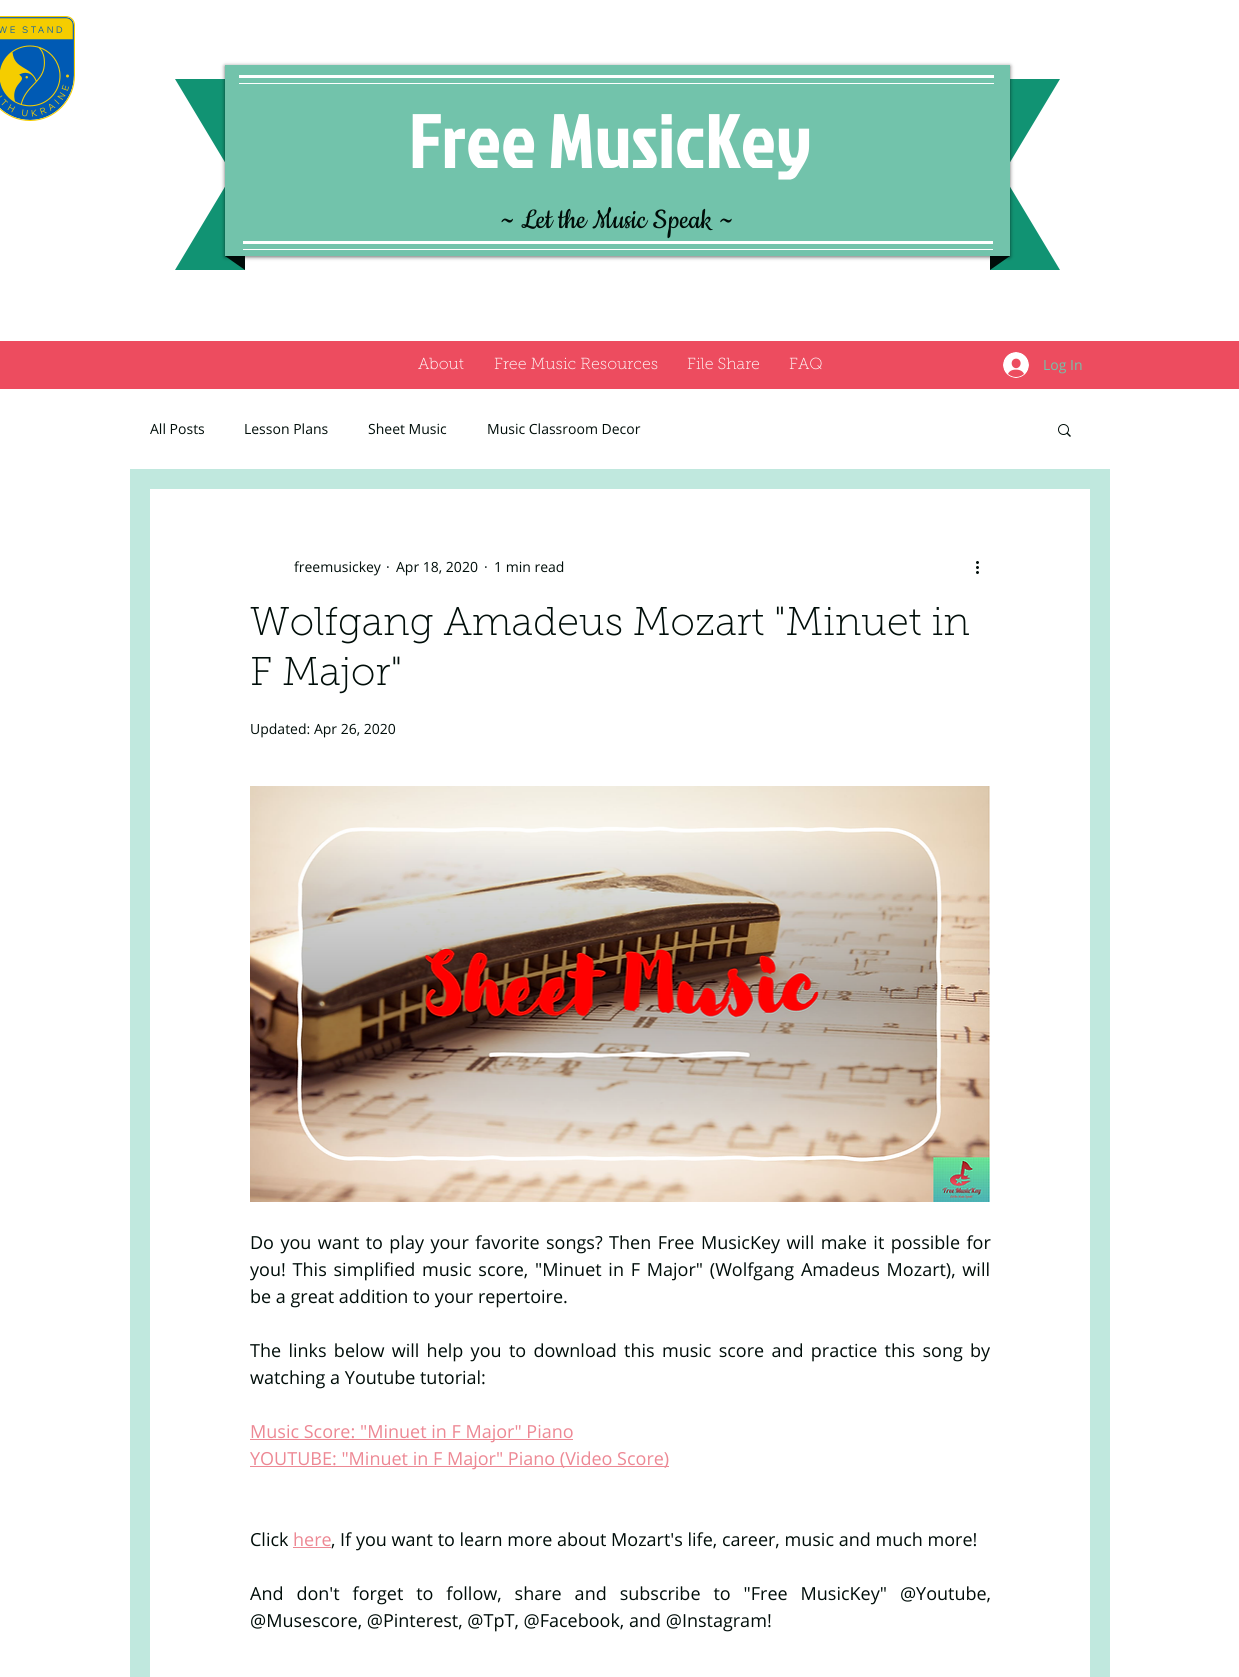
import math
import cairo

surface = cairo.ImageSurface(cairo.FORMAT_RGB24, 1239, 1677)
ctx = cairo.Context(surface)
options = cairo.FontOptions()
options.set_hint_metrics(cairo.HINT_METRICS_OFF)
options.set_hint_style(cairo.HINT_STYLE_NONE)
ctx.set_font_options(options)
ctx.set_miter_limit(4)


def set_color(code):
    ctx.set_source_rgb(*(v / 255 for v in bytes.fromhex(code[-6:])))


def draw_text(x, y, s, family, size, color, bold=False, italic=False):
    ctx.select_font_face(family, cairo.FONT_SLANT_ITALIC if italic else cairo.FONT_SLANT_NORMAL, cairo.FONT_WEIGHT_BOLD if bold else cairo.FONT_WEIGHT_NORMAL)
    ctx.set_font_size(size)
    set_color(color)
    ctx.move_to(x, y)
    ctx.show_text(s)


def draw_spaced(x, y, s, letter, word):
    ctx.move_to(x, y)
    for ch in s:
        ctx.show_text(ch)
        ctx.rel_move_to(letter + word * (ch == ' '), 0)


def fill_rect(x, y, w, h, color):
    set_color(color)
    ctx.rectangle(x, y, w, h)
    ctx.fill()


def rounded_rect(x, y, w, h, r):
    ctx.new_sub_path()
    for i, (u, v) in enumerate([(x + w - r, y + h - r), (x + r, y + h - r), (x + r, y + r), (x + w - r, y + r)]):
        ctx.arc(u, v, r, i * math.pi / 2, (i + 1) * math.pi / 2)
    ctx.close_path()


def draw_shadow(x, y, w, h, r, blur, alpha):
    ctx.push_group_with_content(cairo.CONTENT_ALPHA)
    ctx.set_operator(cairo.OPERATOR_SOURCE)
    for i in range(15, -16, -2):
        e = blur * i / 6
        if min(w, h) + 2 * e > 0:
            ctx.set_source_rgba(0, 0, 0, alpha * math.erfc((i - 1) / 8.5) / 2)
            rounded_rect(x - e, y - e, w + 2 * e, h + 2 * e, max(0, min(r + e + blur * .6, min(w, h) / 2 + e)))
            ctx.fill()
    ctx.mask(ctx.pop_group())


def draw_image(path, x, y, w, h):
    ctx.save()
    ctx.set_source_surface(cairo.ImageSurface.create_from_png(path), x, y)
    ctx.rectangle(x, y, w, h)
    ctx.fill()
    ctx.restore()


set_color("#ffffff")
ctx.paint()
draw_image("assets/img1.png", 0, 16, 75, 105)
set_color("#119373")
ctx.new_path()
ctx.move_to(175, 79)
ctx.line_to(245, 79)
ctx.line_to(245, 179)
ctx.line_to(235, 179)
ctx.close_path()
ctx.fill()
ctx.new_path()
ctx.move_to(990, 79)
ctx.line_to(1060, 79)
ctx.line_to(1000, 179)
ctx.line_to(990, 179)
ctx.close_path()
ctx.fill()
ctx.new_path()
ctx.move_to(245, 270)
ctx.line_to(175, 270)
ctx.line_to(235, 170)
ctx.line_to(245, 170)
ctx.close_path()
ctx.fill()
ctx.new_path()
ctx.move_to(1060, 270)
ctx.line_to(990, 270)
ctx.line_to(990, 170)
ctx.line_to(1000, 170)
ctx.close_path()
ctx.fill()
set_color("#000d09")
ctx.new_path()
ctx.move_to(245, 256)
ctx.line_to(245, 270)
ctx.line_to(225, 256)
ctx.close_path()
ctx.fill()
ctx.new_path()
ctx.move_to(990, 270)
ctx.line_to(990, 256)
ctx.line_to(1010, 256)
ctx.close_path()
ctx.fill()
set_color("#000000")
draw_shadow(225, 66, 785, 191, 0, 2, 0.6)
fill_rect(225, 65, 785, 191, "#72c3ab")
fill_rect(239, 75, 755, 3, "#ffffff")
fill_rect(239, 83, 755, 1, "#ffffff")
draw_text(409, 168, "Free MusicKey", "Jockey One", 77, "#ffffff")
draw_text(500, 228, "~ Let the Music Speak ~", "Cookie", 32, "#000d09")
fill_rect(243, 241, 750, 3, "#ffffff")
fill_rect(243, 249, 750, 1, "#ffffff")
fill_rect(0, 341, 1239, 48, "#ed4c5f")
draw_text(418, 369, "About", "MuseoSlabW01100 Thin", 16, "#ffffff")
draw_text(494, 369, "Free Music Resources", "MuseoSlabW01100 Thin", 16, "#ffffff")
draw_text(687, 369, "File Share", "MuseoSlabW01100 Thin", 16, "#ffffff")
draw_text(789, 369, "FAQ", "MuseoSlabW01100 Thin", 16, "#ffffff")
draw_image("assets/img2.png", 1003, 352, 26, 26)
draw_text(1043, 370, "Log In", "Open Sans", 14, "#72c3ab")
fill_rect(130, 469, 980, 1208, "#c0e8de")
draw_text(150, 434, "All Posts", "Open Sans", 14, "#000d09")
draw_text(244, 434, "Lesson Plans", "Open Sans", 14, "#000d09")
draw_text(368, 434, "Sheet Music", "Open Sans", 14, "#000d09")
draw_text(487, 434, "Music Classroom Decor", "Open Sans", 14, "#000d09")
draw_image("assets/img3.png", 1058, 424, 13, 13)
fill_rect(150, 489, 940, 1188, "#ffffff")
draw_text(294, 572, "freemusickey", "Open Sans", 14, "#000d09")
draw_text(386, 572, "·", "Open Sans", 14, "#000d09")
draw_text(396, 572, "Apr 18, 2020", "Open Sans", 14, "#000d09")
draw_text(484, 572, "·", "Open Sans", 14, "#000d09")
draw_text(494, 572, "1 min read", "Open Sans", 14, "#000d09")
draw_image("assets/img4.png", 976, 561, 3, 13)
draw_text(250, 635, "Wolfgang Amadeus Mozart \"Minuet in", "MuseoSlabW01100 Thin", 40, "#000d09")
draw_text(250, 685, "F Major\"", "MuseoSlabW01100 Thin", 40, "#000d09")
draw_text(250, 734, "Updated: Apr 26, 2020", "Open Sans", 14, "#000d09")
draw_image("assets/img5.png", 250, 786, 740, 416)
ctx.set_font_size(18)
draw_spaced(250, 1249, "Do you want to play your favorite songs? Then Free MusicKey will make it possible for", 0, 1.75)
draw_spaced(250, 1276, "you! This simplified music score, \"Minuet in F Major\" (Wolfgang Amadeus Mozart), will", 0, 2.1)
draw_text(250, 1303, "be a great addition to your repertoire.", "Open Sans", 18, "#000d09")
draw_spaced(250, 1357, "The links below will help you to download this music score and practice this song by", 0, 2.6)
draw_text(250, 1384, "watching a Youtube tutorial:", "Open Sans", 18, "#000d09")
fill_rect(250, 1439, 323, 1, "#ed8894")
draw_text(250, 1438, "Music Score: \"Minuet in F Major\" Piano", "Open Sans", 18, "#ed8894")
fill_rect(250, 1466, 419, 1, "#ed8894")
draw_text(250, 1465, "YOUTUBE: \"Minuet in F Major\" Piano (Video Score)", "Open Sans", 18, "#ed8894")
draw_text(250, 1546, "Click", "Open Sans", 18, "#000d09")
draw_text(293, 1546, "here", "Open Sans", 18, "#ed8894")
fill_rect(293, 1547, 38, 1, "#ed8894")
draw_text(331, 1546, ", If you want to learn more about Mozart's life, career, music and much more!", "Open Sans", 18, "#000d09")
draw_spaced(250, 1600, "And don't forget to follow, share and subscribe to \"Free MusicKey\" @Youtube,", 0, 8.25)
draw_text(250, 1627, "@Musescore, @Pinterest, @TpT, @Facebook, and @Instagram!", "Open Sans", 18, "#000d09")
surface.write_to_png("output.png")
